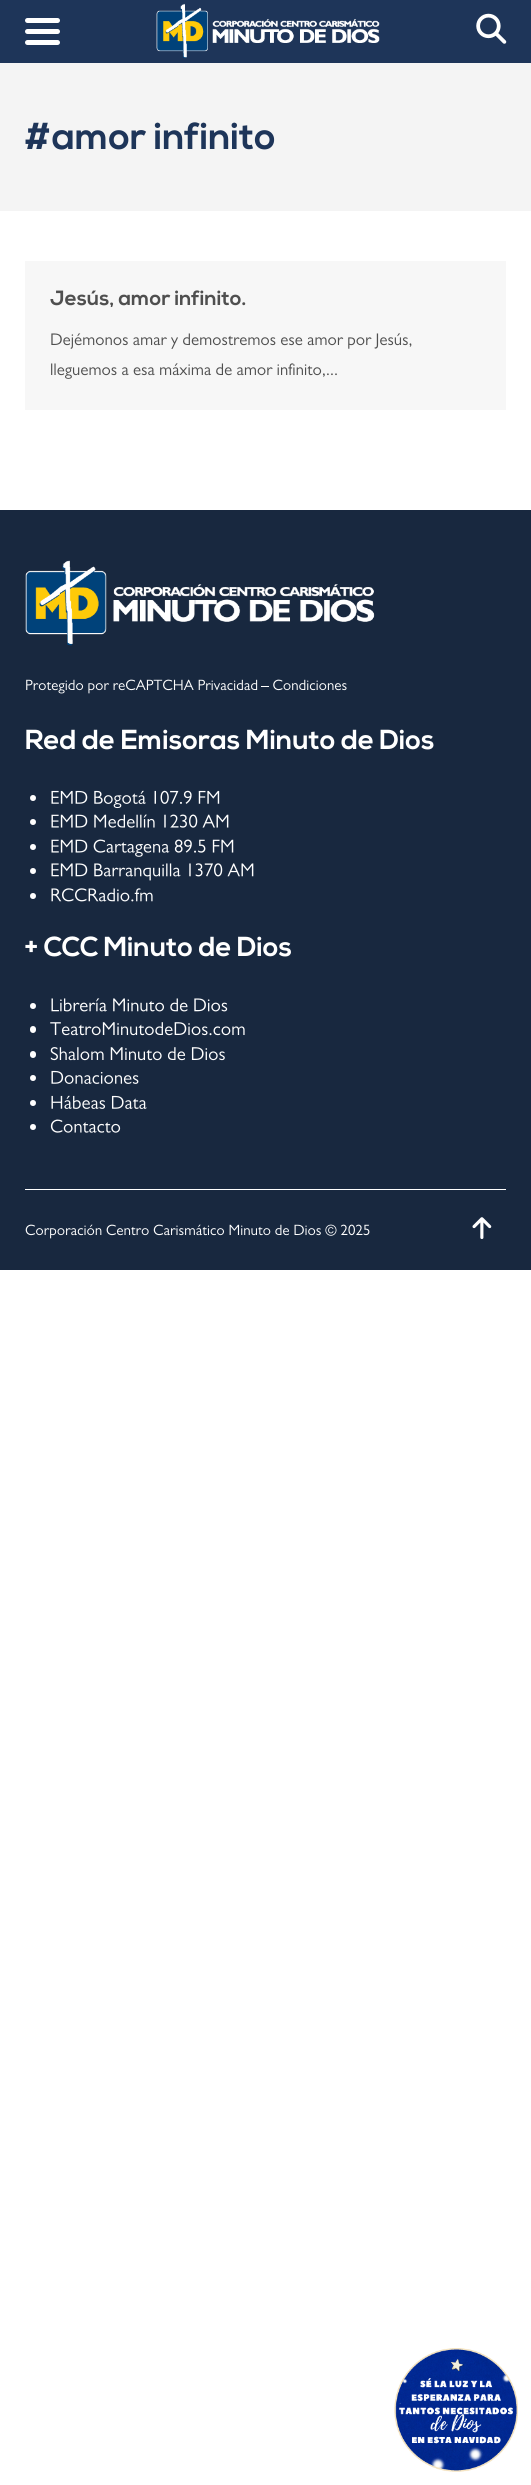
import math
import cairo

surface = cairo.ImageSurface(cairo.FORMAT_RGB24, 531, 2485)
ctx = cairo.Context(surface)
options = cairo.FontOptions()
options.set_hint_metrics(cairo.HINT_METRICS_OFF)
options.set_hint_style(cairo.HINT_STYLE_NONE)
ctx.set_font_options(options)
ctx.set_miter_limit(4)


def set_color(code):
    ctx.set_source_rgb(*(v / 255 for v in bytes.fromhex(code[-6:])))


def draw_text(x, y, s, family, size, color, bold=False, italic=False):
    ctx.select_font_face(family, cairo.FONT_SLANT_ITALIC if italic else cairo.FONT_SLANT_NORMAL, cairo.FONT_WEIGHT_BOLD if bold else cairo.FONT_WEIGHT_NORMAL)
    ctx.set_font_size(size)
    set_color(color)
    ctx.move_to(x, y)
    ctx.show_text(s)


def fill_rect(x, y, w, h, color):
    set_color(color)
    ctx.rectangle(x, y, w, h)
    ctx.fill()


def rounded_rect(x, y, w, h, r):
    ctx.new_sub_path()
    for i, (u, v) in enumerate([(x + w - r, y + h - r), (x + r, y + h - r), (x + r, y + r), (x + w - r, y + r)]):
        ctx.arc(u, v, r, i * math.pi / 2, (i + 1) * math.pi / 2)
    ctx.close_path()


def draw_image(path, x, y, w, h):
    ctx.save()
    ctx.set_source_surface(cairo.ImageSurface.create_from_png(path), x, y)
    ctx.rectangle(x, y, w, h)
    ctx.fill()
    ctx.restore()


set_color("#ffffff")
ctx.paint()
fill_rect(0, 0, 531, 63, "#1e3559")
set_color("#ffffff")
rounded_rect(25, 18, 35, 5, 2.5)
ctx.fill()
rounded_rect(25, 29, 35, 5, 2.5)
ctx.fill()
rounded_rect(25, 40, 35, 5, 2.5)
ctx.fill()
draw_image("assets/img1.png", 156, 3, 224, 55)
draw_image("assets/img2.png", 476, 13, 31, 31)
fill_rect(0, 63, 531, 148, "#f4f4f4")
draw_text(25, 149, "#amor infinito", "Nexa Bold", 37.5, "#1e3559", bold=True)
fill_rect(25, 261, 481, 149, "#f7f7f7")
draw_text(50, 305, "Jesús, amor infinito.", "Nexa Bold", 20.6, "#4f4f4f", bold=True)
draw_image("assets/img3.png", 51, 333, 361, 16)
draw_image("assets/img4.png", 51, 363, 286, 16)
fill_rect(0, 510, 531, 760, "#18283f")
draw_image("assets/img5.png", 25, 560, 350, 86)
draw_image("assets/img6.png", 26, 679, 168, 15)
draw_image("assets/img7.png", 198, 679, 60, 12)
fill_rect(261, 686, 8, 1, "#ffffff")
draw_image("assets/img8.png", 273, 679, 74, 12)
draw_text(25, 749, "Red de Emisoras Minuto de Dios", "Nexa Bold", 27.5, "#ffffff", bold=True)
ctx.new_path()
ctx.arc(33, 798, 3, 0, 2 * math.pi)
ctx.fill()
draw_image("assets/img9.png", 51, 790, 169, 19)
ctx.arc(33, 822, 3, 0, 2 * math.pi)
ctx.fill()
draw_image("assets/img10.png", 51, 814, 178, 14)
ctx.arc(33, 847, 3, 0, 2 * math.pi)
ctx.fill()
draw_image("assets/img11.png", 51, 839, 183, 18)
ctx.arc(33, 871, 3, 0, 2 * math.pi)
ctx.fill()
draw_image("assets/img12.png", 51, 863, 203, 18)
ctx.arc(33, 896, 3, 0, 2 * math.pi)
ctx.fill()
draw_image("assets/img13.png", 51, 888, 102, 14)
draw_text(25, 956, "+ CCC Minuto de Dios", "Nexa Bold", 27.5, "#ffffff", bold=True)
ctx.new_path()
ctx.arc(33, 1006, 3, 0, 2 * math.pi)
ctx.fill()
draw_image("assets/img14.png", 51, 998, 177, 14)
rounded_rect(30, 1026, 6, 7, 3)
ctx.fill()
draw_image("assets/img15.png", 50, 1022, 195, 14)
rounded_rect(30, 1051, 6, 7, 3)
ctx.fill()
draw_image("assets/img16.png", 50, 1047, 175, 14)
ctx.arc(33, 1078, 3, 0, 2 * math.pi)
ctx.fill()
draw_image("assets/img17.png", 51, 1070, 88, 14)
ctx.arc(33, 1103, 3, 0, 2 * math.pi)
ctx.fill()
draw_image("assets/img18.png", 51, 1095, 96, 14)
ctx.arc(33, 1127, 3, 0, 2 * math.pi)
ctx.fill()
draw_image("assets/img19.png", 50, 1119, 71, 14)
fill_rect(25, 1189, 481, 1, "#ffffff")
draw_image("assets/img20.png", 25, 1224, 345, 15)
draw_image("assets/img21.png", 472, 1217, 20, 22)
draw_image("assets/img22.png", 394, 2348, 124, 124)
surface.write_to_png("output.png")
